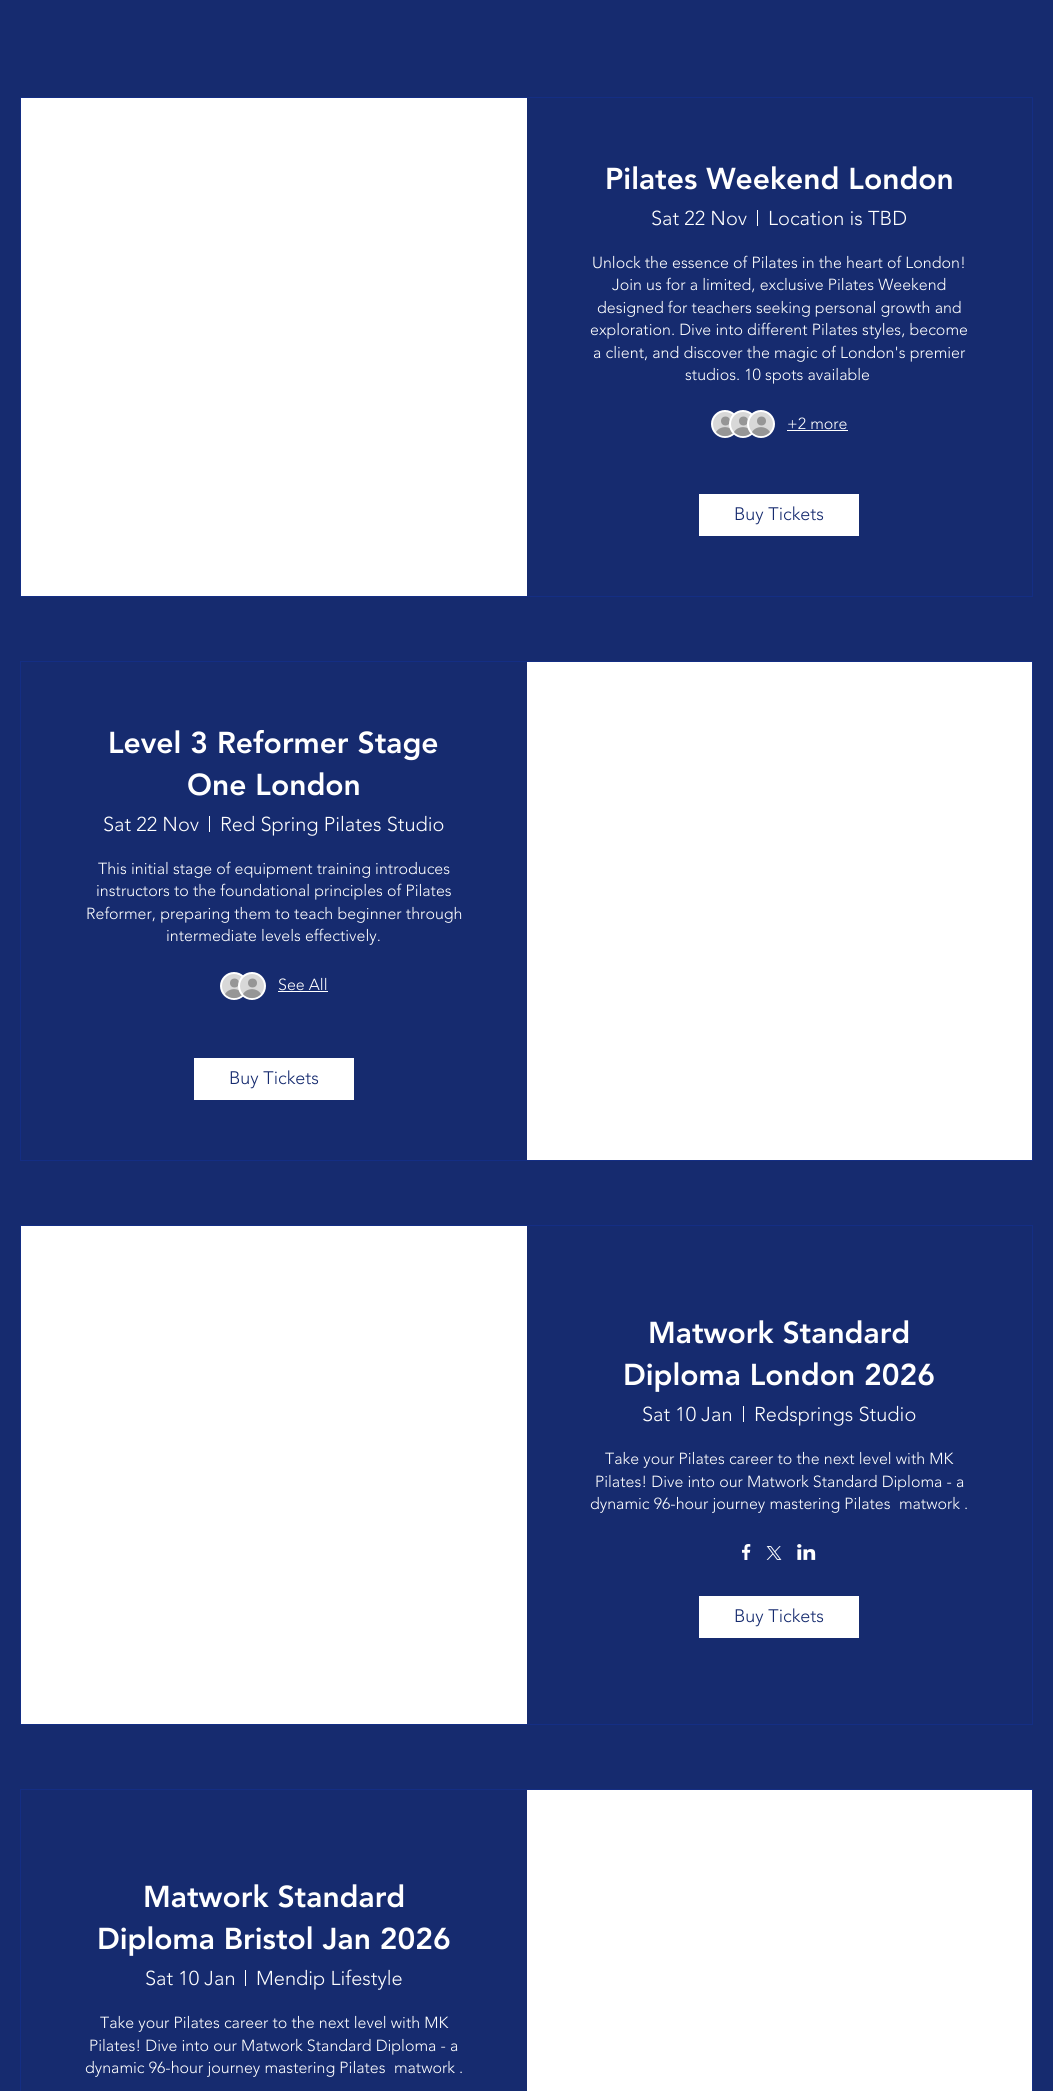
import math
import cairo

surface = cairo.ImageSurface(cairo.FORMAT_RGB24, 1053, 2091)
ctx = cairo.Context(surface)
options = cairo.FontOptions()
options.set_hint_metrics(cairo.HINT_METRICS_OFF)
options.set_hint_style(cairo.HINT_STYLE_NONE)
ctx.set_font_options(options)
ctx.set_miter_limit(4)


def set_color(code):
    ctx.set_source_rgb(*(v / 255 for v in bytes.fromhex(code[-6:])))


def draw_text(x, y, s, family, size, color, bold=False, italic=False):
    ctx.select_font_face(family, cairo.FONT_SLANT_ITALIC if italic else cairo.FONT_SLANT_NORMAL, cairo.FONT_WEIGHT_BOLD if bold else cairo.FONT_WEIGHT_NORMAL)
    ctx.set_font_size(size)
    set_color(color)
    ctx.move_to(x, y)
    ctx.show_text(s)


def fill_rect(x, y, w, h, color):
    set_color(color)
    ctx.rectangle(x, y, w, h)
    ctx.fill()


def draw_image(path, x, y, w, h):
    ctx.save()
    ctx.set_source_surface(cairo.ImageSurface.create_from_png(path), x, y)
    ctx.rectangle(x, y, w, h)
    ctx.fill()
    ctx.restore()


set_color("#162b6f")
ctx.paint()
ctx.rectangle(20.5, 97.5, 1012, 499)
set_color("#142e84")
ctx.set_line_width(1)
ctx.stroke()
fill_rect(21, 98, 506, 498, "#ffffff")
draw_text(605, 189, "Pilates Weekend London", "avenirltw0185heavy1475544 Black", 30, "#ffffff")
draw_text(651, 225, "Sat 22 Nov", "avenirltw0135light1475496 Light", 20, "#ffffff")
fill_rect(757, 210, 1, 16, "#ffffff")
draw_text(768, 225, "Location is TBD", "avenirltw0135light1475496 Light", 20, "#ffffff")
draw_text(592, 268, "Unlock the essence of Pilates in the heart of London!", "avenirltw0135light1475496 Light", 16, "#ffffff")
draw_text(612, 290, "Join us for a limited, exclusive Pilates Weekend", "avenirltw0135light1475496 Light", 16, "#ffffff")
draw_text(597, 313, "designed for teachers seeking personal growth and", "avenirltw0135light1475496 Light", 16, "#ffffff")
draw_text(590, 335, "exploration. Dive into different Pilates styles, become", "avenirltw0135light1475496 Light", 16, "#ffffff")
draw_text(593, 358, "a client, and discover the magic of London's premier", "avenirltw0135light1475496 Light", 16, "#ffffff")
draw_text(685, 380, "studios. 10 spots available", "avenirltw0135light1475496 Light", 16, "#ffffff")
set_color("#d8d8d8")
ctx.new_path()
ctx.arc(725, 424, 13, 0, 2 * math.pi)
ctx.fill_preserve()
set_color("#ffffff")
ctx.set_line_width(2)
ctx.stroke()
set_color("#969696")
ctx.arc(725.5, 421, 4.5, 0, 2 * math.pi)
ctx.fill()
ctx.new_path()
ctx.move_to(734, 432)
ctx.curve_to(729.5, 437.5, 720.5, 437.5, 716, 432)
ctx.curve_to(720, 425.5, 730, 425.5, 734, 432)
ctx.close_path()
ctx.fill()
set_color("#d8d8d8")
ctx.arc(743, 424, 13, 0, 2 * math.pi)
ctx.fill_preserve()
set_color("#ffffff")
ctx.stroke()
set_color("#969696")
ctx.arc(743.5, 421, 4.5, 0, 2 * math.pi)
ctx.fill()
ctx.new_path()
ctx.move_to(752, 432)
ctx.curve_to(747.5, 437.5, 738.5, 437.5, 734, 432)
ctx.curve_to(738, 425.5, 748, 425.5, 752, 432)
ctx.close_path()
ctx.fill()
set_color("#d8d8d8")
ctx.arc(761, 424, 13, 0, 2 * math.pi)
ctx.fill_preserve()
set_color("#ffffff")
ctx.stroke()
set_color("#969696")
ctx.arc(761.5, 421, 4.5, 0, 2 * math.pi)
ctx.fill()
ctx.new_path()
ctx.move_to(770, 432)
ctx.curve_to(765.5, 437.5, 756.5, 437.5, 752, 432)
ctx.curve_to(756, 425.5, 766, 425.5, 770, 432)
ctx.close_path()
ctx.fill()
draw_text(787, 429, "+2 more", "avenirltw0135light1475496 Light", 16, "#ffffff")
fill_rect(787, 430, 61, 1, "#ffffff")
fill_rect(699, 494, 160, 42, "#ffffff")
draw_text(734, 520, "Buy Tickets", "avenirltw0135light1475496 Light", 18, "#162b6f")
ctx.rectangle(20.5, 661.5, 1012, 499)
set_color("#142e84")
ctx.set_line_width(1)
ctx.stroke()
draw_text(108, 753, "Level 3 Reformer Stage", "avenirltw0185heavy1475544 Black", 30, "#ffffff")
draw_text(187, 795, "One London", "avenirltw0185heavy1475544 Black", 30, "#ffffff")
draw_text(103, 831, "Sat 22 Nov", "avenirltw0135light1475496 Light", 20, "#ffffff")
fill_rect(209, 816, 1, 16, "#ffffff")
draw_text(220, 831, "Red Spring Pilates Studio", "avenirltw0135light1475496 Light", 20, "#ffffff")
draw_text(98, 874, "This initial stage of equipment training introduces", "avenirltw0135light1475496 Light", 16, "#ffffff")
draw_text(96, 896, "instructors to the foundational principles of Pilates", "avenirltw0135light1475496 Light", 16, "#ffffff")
draw_text(86, 919, "Reformer, preparing them to teach beginner through", "avenirltw0135light1475496 Light", 16, "#ffffff")
draw_text(166, 941, "intermediate levels effectively.", "avenirltw0135light1475496 Light", 16, "#ffffff")
set_color("#d8d8d8")
ctx.new_path()
ctx.arc(234, 986, 13, 0, 2 * math.pi)
ctx.fill_preserve()
set_color("#ffffff")
ctx.set_line_width(2)
ctx.stroke()
set_color("#969696")
ctx.arc(234.5, 983, 4.5, 0, 2 * math.pi)
ctx.fill()
ctx.new_path()
ctx.move_to(243, 994)
ctx.curve_to(238.5, 999.5, 229.5, 999.5, 225, 994)
ctx.curve_to(229, 987.5, 239, 987.5, 243, 994)
ctx.close_path()
ctx.fill()
set_color("#d8d8d8")
ctx.arc(252, 986, 13, 0, 2 * math.pi)
ctx.fill_preserve()
set_color("#ffffff")
ctx.stroke()
set_color("#969696")
ctx.arc(252.5, 983, 4.5, 0, 2 * math.pi)
ctx.fill()
ctx.new_path()
ctx.move_to(261, 994)
ctx.curve_to(256.5, 999.5, 247.5, 999.5, 243, 994)
ctx.curve_to(247, 987.5, 257, 987.5, 261, 994)
ctx.close_path()
ctx.fill()
draw_text(278, 990, "See All", "avenirltw0135light1475496 Light", 16, "#ffffff")
fill_rect(278, 991, 50, 1, "#ffffff")
fill_rect(194, 1058, 160, 42, "#ffffff")
draw_text(229, 1084, "Buy Tickets", "avenirltw0135light1475496 Light", 18, "#162b6f")
fill_rect(527, 662, 505, 498, "#ffffff")
ctx.rectangle(20.5, 1225.5, 1012, 499)
set_color("#142e84")
ctx.set_line_width(1)
ctx.stroke()
fill_rect(21, 1226, 506, 498, "#ffffff")
draw_text(648, 1343, "Matwork Standard", "avenirltw0185heavy1475544 Black", 30, "#ffffff")
draw_text(623, 1385, "Diploma London 2026", "avenirltw0185heavy1475544 Black", 30, "#ffffff")
draw_text(642, 1421, "Sat 10 Jan", "avenirltw0135light1475496 Light", 20, "#ffffff")
fill_rect(743, 1406, 1, 16, "#ffffff")
draw_text(754, 1421, "Redsprings Studio", "avenirltw0135light1475496 Light", 20, "#ffffff")
draw_text(605, 1464, "Take your Pilates career to the next level with MK", "avenirltw0135light1475496 Light", 16, "#ffffff")
draw_text(595, 1487, "Pilates! Dive into our Matwork Standard Diploma - a", "avenirltw0135light1475496 Light", 16, "#ffffff")
draw_text(590, 1509, "dynamic 96-hour journey mastering Pilates  matwork .", "avenirltw0135light1475496 Light", 16, "#ffffff")
draw_image("assets/img1.png", 742, 1544, 9, 16)
draw_image("assets/img2.png", 766, 1546, 16, 14)
draw_image("assets/img3.png", 797, 1544, 19, 16)
fill_rect(699, 1596, 160, 42, "#ffffff")
draw_text(734, 1622, "Buy Tickets", "avenirltw0135light1475496 Light", 18, "#162b6f")
ctx.rectangle(20.5, 1789.5, 1012, 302)
set_color("#142e84")
ctx.stroke()
draw_text(143, 1907, "Matwork Standard", "avenirltw0185heavy1475544 Black", 30, "#ffffff")
draw_text(97, 1949, "Diploma Bristol Jan 2026", "avenirltw0185heavy1475544 Black", 30, "#ffffff")
draw_text(145, 1985, "Sat 10 Jan", "avenirltw0135light1475496 Light", 20, "#ffffff")
fill_rect(245, 1970, 1, 16, "#ffffff")
draw_text(256, 1985, "Mendip Lifestyle", "avenirltw0135light1475496 Light", 20, "#ffffff")
draw_text(100, 2028, "Take your Pilates career to the next level with MK", "avenirltw0135light1475496 Light", 16, "#ffffff")
draw_text(89, 2051, "Pilates! Dive into our Matwork Standard Diploma - a", "avenirltw0135light1475496 Light", 16, "#ffffff")
draw_text(85, 2073, "dynamic 96-hour journey mastering Pilates  matwork .", "avenirltw0135light1475496 Light", 16, "#ffffff")
fill_rect(527, 1790, 505, 301, "#ffffff")
surface.write_to_png("output.png")
